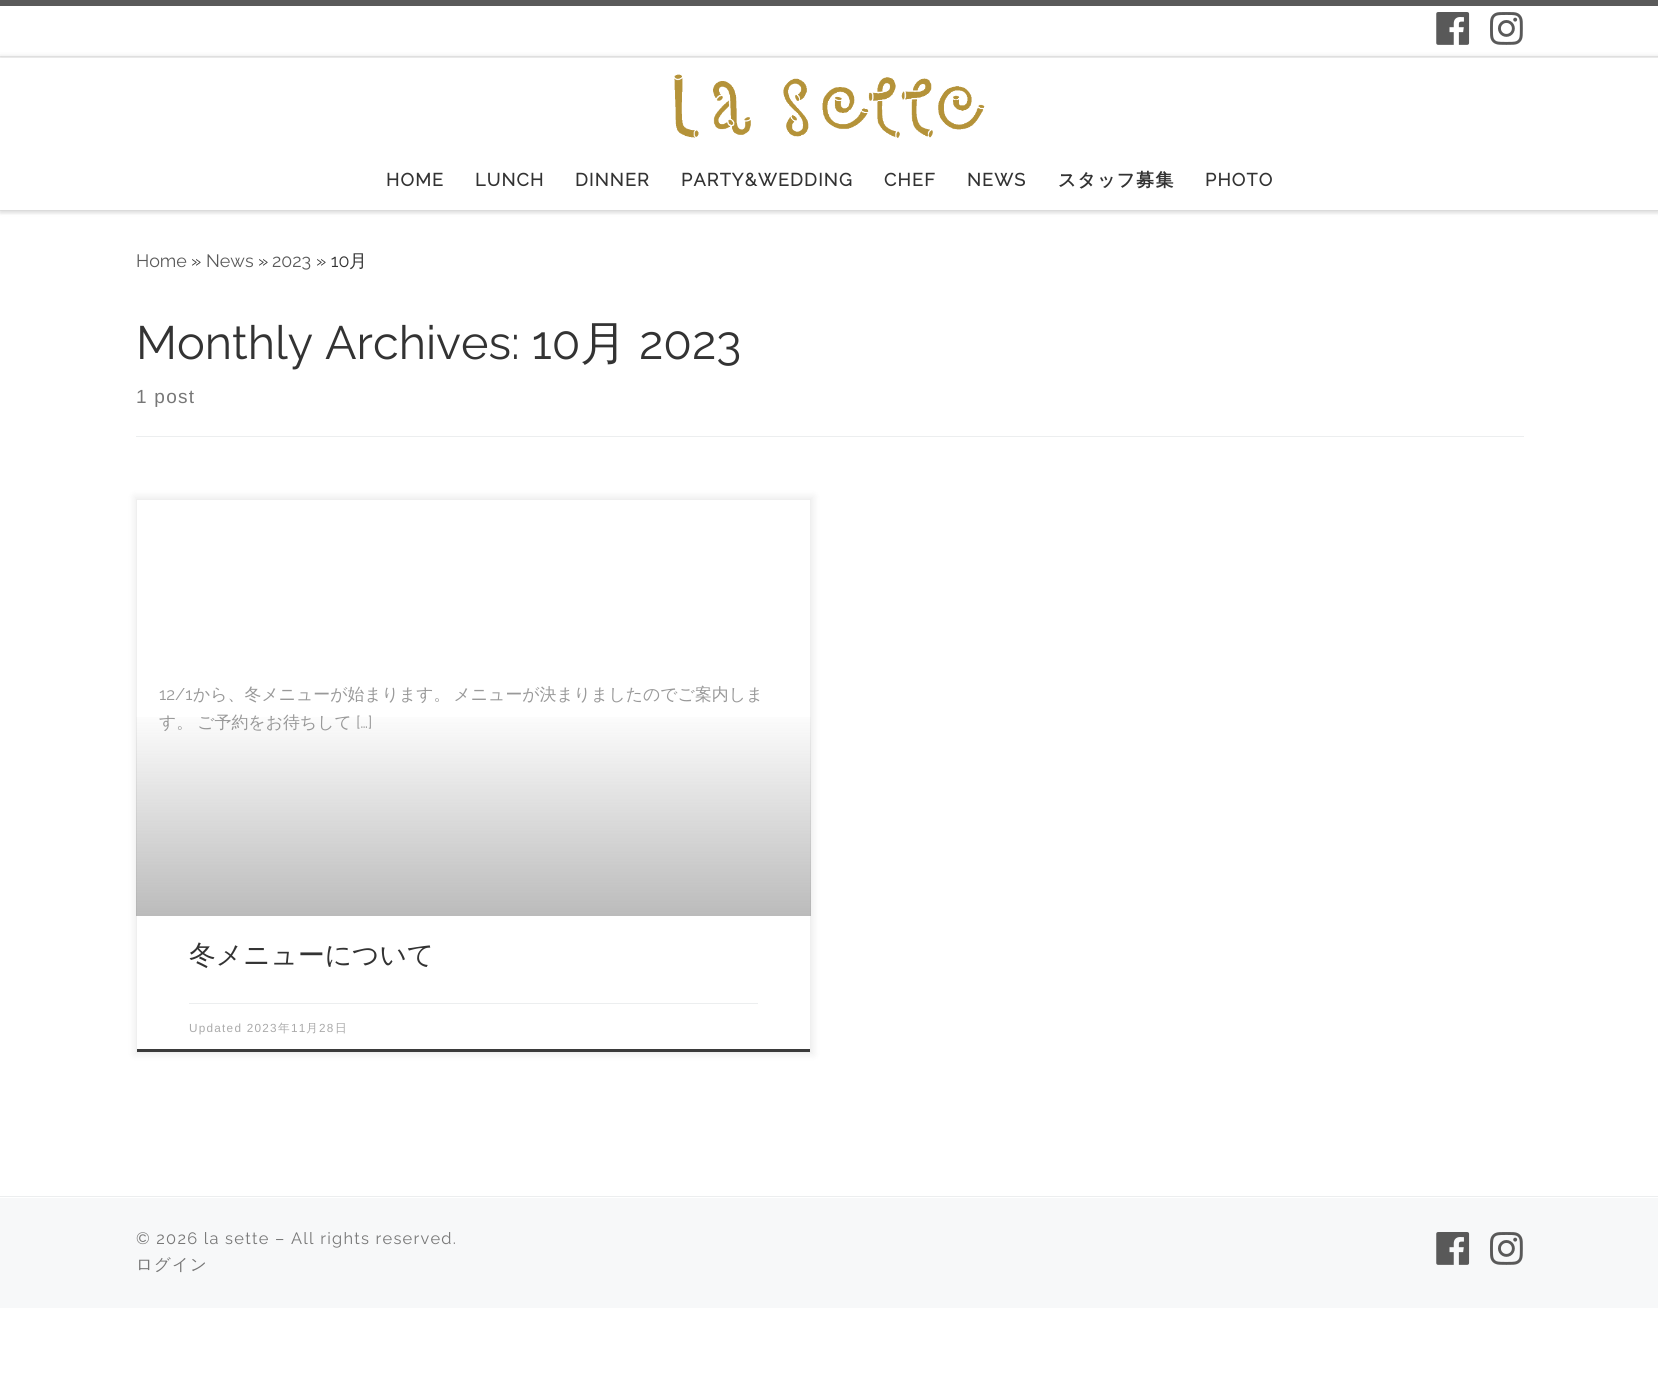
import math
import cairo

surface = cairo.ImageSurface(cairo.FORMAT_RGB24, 1658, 1377)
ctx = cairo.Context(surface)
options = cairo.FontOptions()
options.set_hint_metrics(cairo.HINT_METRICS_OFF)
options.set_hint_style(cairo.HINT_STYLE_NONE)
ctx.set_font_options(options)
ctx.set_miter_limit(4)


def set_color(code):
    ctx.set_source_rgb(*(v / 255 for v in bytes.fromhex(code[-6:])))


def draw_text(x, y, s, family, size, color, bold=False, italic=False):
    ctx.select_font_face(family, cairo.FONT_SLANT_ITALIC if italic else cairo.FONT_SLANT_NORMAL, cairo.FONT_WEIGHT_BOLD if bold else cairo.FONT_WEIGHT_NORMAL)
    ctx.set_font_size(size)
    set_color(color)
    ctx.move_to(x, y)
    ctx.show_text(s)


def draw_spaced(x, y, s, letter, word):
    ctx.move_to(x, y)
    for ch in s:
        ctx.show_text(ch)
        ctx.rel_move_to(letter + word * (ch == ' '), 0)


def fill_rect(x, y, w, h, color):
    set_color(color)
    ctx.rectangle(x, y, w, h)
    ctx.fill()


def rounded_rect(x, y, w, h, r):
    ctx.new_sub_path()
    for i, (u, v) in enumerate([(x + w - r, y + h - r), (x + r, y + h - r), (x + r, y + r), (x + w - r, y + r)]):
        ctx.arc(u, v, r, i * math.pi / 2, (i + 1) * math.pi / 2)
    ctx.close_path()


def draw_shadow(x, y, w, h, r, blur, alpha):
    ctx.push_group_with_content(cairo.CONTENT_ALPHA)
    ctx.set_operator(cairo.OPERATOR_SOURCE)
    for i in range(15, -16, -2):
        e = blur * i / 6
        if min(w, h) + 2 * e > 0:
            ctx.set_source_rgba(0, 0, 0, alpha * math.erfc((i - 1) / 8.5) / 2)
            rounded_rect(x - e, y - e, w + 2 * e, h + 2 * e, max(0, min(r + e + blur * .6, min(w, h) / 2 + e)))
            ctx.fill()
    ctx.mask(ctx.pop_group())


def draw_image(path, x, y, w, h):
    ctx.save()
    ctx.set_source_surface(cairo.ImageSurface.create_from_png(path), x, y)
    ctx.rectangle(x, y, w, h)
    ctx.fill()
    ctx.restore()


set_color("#ffffff")
ctx.paint()
ctx.save()
ctx.rectangle(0, 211, 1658, 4)
ctx.clip()
set_color("#666666")
draw_shadow(0, 3, 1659, 211, 0, 1, 0.08)
ctx.restore()
fill_rect(0, 0, 1658, 6, "#5a5a5a")
fill_rect(0, 56, 1658, 1, "#ececec")
draw_image("assets/img1.png", 1436, 12, 34, 33)
draw_image("assets/img2.png", 1490, 12, 33, 33)
set_color("#efefef")
ctx.new_path()
ctx.move_to(0, 210)
ctx.line_to(0, 211)
ctx.line_to(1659, 211)
ctx.line_to(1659, 59)
ctx.line_to(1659, 210)
ctx.close_path()
ctx.fill()
ctx.save()
ctx.set_fill_rule(cairo.FILL_RULE_EVEN_ODD)
ctx.new_path()
ctx.move_to(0, 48)
ctx.line_to(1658, 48)
ctx.line_to(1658, 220)
ctx.line_to(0, 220)
ctx.close_path()
ctx.move_to(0, 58)
ctx.line_to(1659, 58)
ctx.line_to(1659, 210)
ctx.line_to(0, 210)
ctx.close_path()
ctx.clip()
set_color("#000000")
draw_shadow(0, 58, 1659, 152, 0, 3, 0.2)
ctx.restore()
draw_image("assets/img3.png", 674, 74, 311, 64)
ctx.select_font_face("Raleway", cairo.FONT_SLANT_NORMAL, cairo.FONT_WEIGHT_BOLD)
ctx.set_font_size(17.9)
set_color("#333333")
draw_spaced(386, 186, "HOME", 1.25, 0)
draw_spaced(475, 186, "LUNCH", 1.25, 0)
draw_spaced(575, 186, "DINNER", 1.25, 0)
draw_spaced(681, 186, "PARTY&WEDDING", 1.25, 0)
draw_spaced(884, 186, "CHEF", 1.25, 0)
draw_spaced(967, 186, "NEWS", 1.25, 0)
ctx.select_font_face("WenQuanYi Zen Hei", cairo.FONT_SLANT_NORMAL, cairo.FONT_WEIGHT_BOLD)
draw_spaced(1058, 186, "スタッフ募集", 1.25, 0)
ctx.select_font_face("Raleway", cairo.FONT_SLANT_NORMAL, cairo.FONT_WEIGHT_BOLD)
draw_spaced(1205, 186, "PHOTO", 1.25, 0)
draw_text(136, 267, "Home", "Raleway Thin", 17.9, "#5a5a5a")
draw_text(191, 267, "»", "Raleway Thin", 17.9, "#333333")
draw_text(206, 267, "News", "Raleway Thin", 17.9, "#5a5a5a")
draw_text(258, 267, "»", "Raleway Thin", 17.9, "#333333")
draw_text(272, 267, "2023", "Raleway Thin", 17.9, "#5a5a5a")
draw_text(316, 267, "» 10", "Raleway Thin", 17.9, "#333333")
draw_text(349, 267, "月", "WenQuanYi Zen Hei Medium", 17.9, "#333333")
draw_text(136, 359, "Monthly Archives: 10", "Raleway Thin", 46.75, "#333333")
draw_text(580, 359, "月", "WenQuanYi Zen Hei Medium", 46.75, "#333333")
draw_text(639, 359, "2023", "Raleway Thin", 46.75, "#333333")
ctx.select_font_face("Liberation Sans")
ctx.set_font_size(19)
set_color("#777777")
draw_spaced(136, 403, "1 post", 1.25, 0)
fill_rect(136, 436, 1388, 1, "#eceeef")
set_color("#000000")
draw_shadow(134, 496, 680, 559, 0, 4, 0.07)
fill_rect(137, 500, 673, 549, "#ffffff")
fill_rect(136, 1049, 675, 3, "#3b3b3b")
ctx.rectangle(136.5, 499.5, 674, 553)
set_color("#efefef")
ctx.set_line_width(1)
ctx.stroke()
draw_text(159, 700, "12/1", "Raleway Thin", 16.9, "#999999")
ctx.select_font_face("WenQuanYi Zen Hei Medium")
draw_spaced(193, 700, "から、冬メニューが始まります。 メニューが決まりましたのでご案内しま", 0, -2)
draw_spaced(159, 728, "す。 ご予約をお待ちして", 0, -1)
draw_text(356, 728, "[…]", "Raleway Thin", 16.9, "#999999")
gradient = cairo.LinearGradient(474, 708, 474, 916)
gradient.add_color_stop_rgba(0, 0.467, 0.467, 0.467, 0)
gradient.add_color_stop_rgba(1, 0.467, 0.467, 0.467, 0.5)
ctx.set_source(gradient)
ctx.rectangle(136, 717, 675, 199)
ctx.fill()
draw_text(189, 964, "冬メニューについて", "WenQuanYi Zen Hei Medium", 26.75, "#333333")
fill_rect(189, 1003, 569, 1, "#eceeef")
ctx.select_font_face("Liberation Sans")
ctx.set_font_size(11.75)
set_color("#aaaaaa")
draw_spaced(189, 1032, "Updated 2023", 1.25, 0)
ctx.select_font_face("WenQuanYi Zen Hei Medium")
draw_spaced(278, 1032, "年", 1.25, 0)
ctx.select_font_face("Liberation Sans")
draw_spaced(291, 1032, "11", 1.25, 0)
ctx.select_font_face("WenQuanYi Zen Hei Medium")
draw_spaced(306, 1032, "月", 1.25, 0)
ctx.select_font_face("Liberation Sans")
draw_spaced(319, 1032, "28", 1.25, 0)
ctx.select_font_face("WenQuanYi Zen Hei Medium")
draw_spaced(335, 1032, "日", 1.25, 0)
fill_rect(0, 1196, 1658, 1, "#eceeef")
fill_rect(0, 1198, 1658, 110, "#f7f8f9")
ctx.select_font_face("Raleway Thin")
ctx.set_font_size(16.4)
set_color("#777777")
draw_spaced(136, 1244, "© 2026 la sette – All rights reserved.", 1.25, 0)
ctx.select_font_face("WenQuanYi Zen Hei Medium")
draw_spaced(136, 1270, "ログイン", 1.25, 0)
draw_image("assets/img4.png", 1436, 1232, 34, 33)
draw_image("assets/img5.png", 1490, 1232, 33, 33)
surface.write_to_png("output.png")
